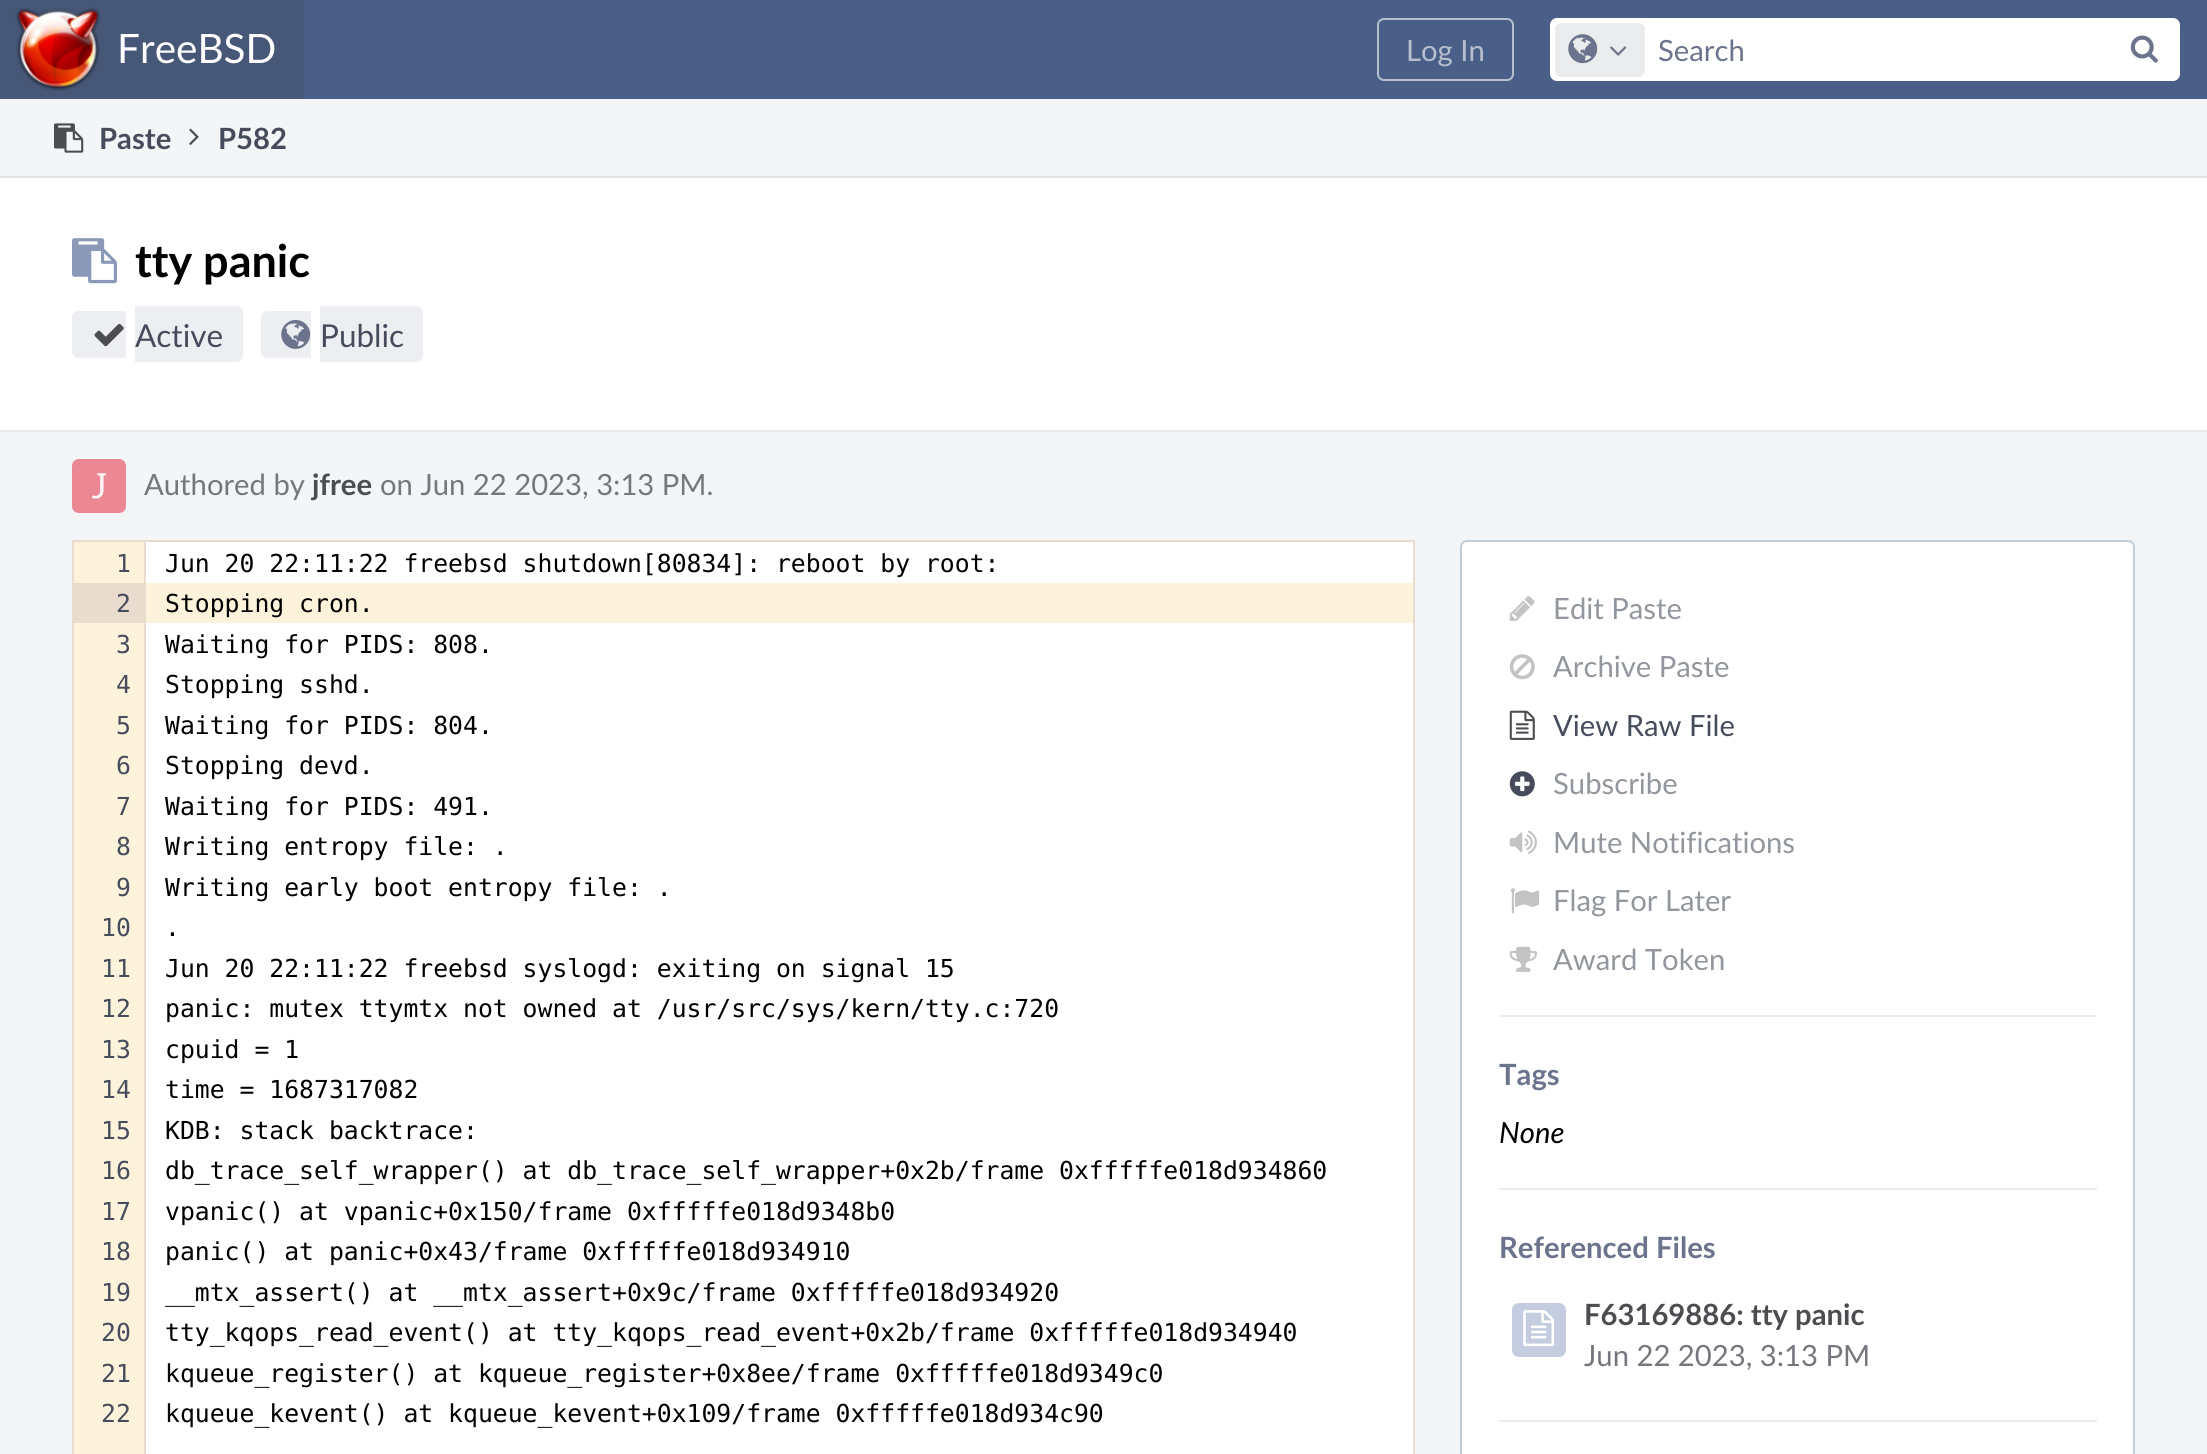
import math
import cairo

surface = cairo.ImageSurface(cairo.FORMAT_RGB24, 2207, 1454)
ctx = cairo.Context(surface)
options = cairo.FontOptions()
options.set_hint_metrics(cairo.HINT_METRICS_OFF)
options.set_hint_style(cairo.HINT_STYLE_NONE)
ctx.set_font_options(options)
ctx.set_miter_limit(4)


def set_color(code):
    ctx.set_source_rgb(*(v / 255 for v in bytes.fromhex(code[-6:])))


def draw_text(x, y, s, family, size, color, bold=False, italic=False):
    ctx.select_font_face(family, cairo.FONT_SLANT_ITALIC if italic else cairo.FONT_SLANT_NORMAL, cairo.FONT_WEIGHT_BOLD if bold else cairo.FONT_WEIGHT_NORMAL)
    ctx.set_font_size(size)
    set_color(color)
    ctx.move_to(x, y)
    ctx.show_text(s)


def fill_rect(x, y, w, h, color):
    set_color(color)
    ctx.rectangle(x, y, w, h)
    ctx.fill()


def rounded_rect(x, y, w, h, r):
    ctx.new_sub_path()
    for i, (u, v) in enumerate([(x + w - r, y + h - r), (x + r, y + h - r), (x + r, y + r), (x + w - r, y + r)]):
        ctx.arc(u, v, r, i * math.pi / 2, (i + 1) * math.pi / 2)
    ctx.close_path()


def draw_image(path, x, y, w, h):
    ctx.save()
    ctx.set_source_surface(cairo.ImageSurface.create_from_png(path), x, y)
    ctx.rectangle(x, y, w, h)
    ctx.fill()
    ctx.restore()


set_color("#f3f5f7")
ctx.paint()
fill_rect(304, 0, 1903, 99, "#4a5f88")
fill_rect(0, 0, 304, 99, "#465778")
draw_image("assets/img1.png", 15, 7, 86, 84)
draw_text(117, 63, "FreeBSD", "Lato", 40.5, "#ffffff")
rounded_rect(1378, 19, 135, 61, 6)
set_color("#b7bfcf")
ctx.stroke()
draw_text(1406, 61, "Log In", "Lato", 29.25, "#b7bfcf")
set_color("#ffffff")
rounded_rect(1550, 18, 630, 63, 7)
ctx.fill()
set_color("#ebecee")
rounded_rect(1555, 23, 90, 54, 7)
ctx.fill()
draw_image("assets/img2.png", 1568, 34, 30, 30)
draw_image("assets/img3.png", 1610, 46, 17, 10)
draw_text(1658, 61, "Search", "Lato", 29.25, "#6b748c")
draw_image("assets/img4.png", 2130, 35, 28, 28)
fill_rect(0, 176, 2207, 2, "#e0e2e4")
draw_image("assets/img5.png", 54, 123, 30, 30)
draw_text(99, 149, "Paste", "Lato", 29.25, "#464c5c", bold=True)
draw_image("assets/img6.png", 189, 128, 10, 17)
draw_text(218, 149, "P582", "Lato", 29.25, "#464c5c", bold=True)
fill_rect(0, 178, 2207, 252, "#ffffff")
fill_rect(0, 430, 2207, 2, "#e7e7e7")
draw_image("assets/img7.png", 72, 238, 45, 46)
draw_text(135, 277, "tty panic", "Lato", 45, "#000000", bold=True)
set_color("#edeef2")
ctx.new_path()
ctx.move_to(79, 311)
ctx.line_to(126, 311)
ctx.line_to(126, 358)
ctx.line_to(79, 358)
ctx.curve_to(75, 358, 72, 355, 72, 351)
ctx.line_to(72, 318)
ctx.curve_to(72, 314, 75, 311, 79, 311)
ctx.close_path()
ctx.fill()
ctx.new_path()
ctx.move_to(135, 306)
ctx.line_to(236, 306)
ctx.curve_to(240, 306, 243, 309, 243, 313)
ctx.line_to(243, 355)
ctx.curve_to(243, 359, 240, 362, 236, 362)
ctx.line_to(135, 362)
ctx.close_path()
ctx.fill()
draw_image("assets/img8.png", 94, 323, 30, 24)
draw_text(135, 347, "Active", "Lato", 31.5, "#464c5c")
set_color("#edeef2")
ctx.new_path()
ctx.move_to(268, 311)
ctx.line_to(311, 311)
ctx.line_to(311, 358)
ctx.line_to(268, 358)
ctx.curve_to(264, 358, 261, 355, 261, 351)
ctx.line_to(261, 318)
ctx.curve_to(261, 314, 264, 311, 268, 311)
ctx.close_path()
ctx.fill()
ctx.new_path()
ctx.move_to(320, 306)
ctx.line_to(416, 306)
ctx.curve_to(420, 306, 423, 309, 423, 313)
ctx.line_to(423, 355)
ctx.curve_to(423, 359, 420, 362, 416, 362)
ctx.line_to(320, 362)
ctx.close_path()
ctx.fill()
draw_image("assets/img9.png", 281, 320, 30, 29)
draw_text(320, 347, "Public", "Lato", 31.5, "#464c5c")
draw_image("assets/img10.png", 72, 459, 54, 54)
draw_text(144, 495, "Authored by", "Lato", 29.25, "#74777d")
draw_text(312, 495, "jfree", "Lato", 29.25, "#4b4d51", bold=True)
draw_text(380, 495, "on Jun 22 2023, 3:13 PM.", "Lato", 29.25, "#74777d")
ctx.rectangle(73, 541, 1341, 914)
set_color("#e9dbcd")
ctx.stroke()
fill_rect(74, 542, 70, 41, "#fdf3da")
fill_rect(74, 583, 72, 40, "#e9dbcd")
fill_rect(144, 542, 2, 43, "#e9dbcd")
draw_text(116, 572, "1", "DejaVu Sans Mono", 24.75, "#464c5c")
fill_rect(146, 542, 1267, 41, "#ffffff")
draw_text(165, 572, "Jun 20 22:11:22 freebsd shutdown[80834]: reboot by root:", "DejaVu Sans Mono", 24.75, "#000000")
draw_text(116, 612, "2", "DejaVu Sans Mono", 24.75, "#464c5c")
fill_rect(146, 583, 1267, 40, "#fdf3da")
draw_text(165, 612, "Stopping cron.", "DejaVu Sans Mono", 24.75, "#000000")
fill_rect(144, 623, 2, 831, "#e9dbcd")
fill_rect(74, 623, 70, 831, "#fdf3da")
draw_text(116, 653, "3", "DejaVu Sans Mono", 24.75, "#464c5c")
fill_rect(146, 623, 1267, 831, "#ffffff")
draw_text(165, 653, "Waiting for PIDS: 808.", "DejaVu Sans Mono", 24.75, "#000000")
draw_text(116, 693, "4", "DejaVu Sans Mono", 24.75, "#464c5c")
draw_text(165, 693, "Stopping sshd.", "DejaVu Sans Mono", 24.75, "#000000")
draw_text(116, 734, "5", "DejaVu Sans Mono", 24.75, "#464c5c")
draw_text(165, 734, "Waiting for PIDS: 804.", "DejaVu Sans Mono", 24.75, "#000000")
draw_text(116, 774, "6", "DejaVu Sans Mono", 24.75, "#464c5c")
draw_text(165, 774, "Stopping devd.", "DejaVu Sans Mono", 24.75, "#000000")
draw_text(116, 815, "7", "DejaVu Sans Mono", 24.75, "#464c5c")
draw_text(165, 815, "Waiting for PIDS: 491.", "DejaVu Sans Mono", 24.75, "#000000")
draw_text(116, 855, "8", "DejaVu Sans Mono", 24.75, "#464c5c")
draw_text(165, 855, "Writing entropy file: .", "DejaVu Sans Mono", 24.75, "#000000")
draw_text(116, 896, "9", "DejaVu Sans Mono", 24.75, "#464c5c")
draw_text(165, 896, "Writing early boot entropy file: .", "DejaVu Sans Mono", 24.75, "#000000")
draw_text(101, 936, "10", "DejaVu Sans Mono", 24.75, "#464c5c")
draw_text(165, 936, ".", "DejaVu Sans Mono", 24.75, "#000000")
draw_text(101, 977, "11", "DejaVu Sans Mono", 24.75, "#464c5c")
draw_text(165, 977, "Jun 20 22:11:22 freebsd syslogd: exiting on signal 15", "DejaVu Sans Mono", 24.75, "#000000")
draw_text(101, 1017, "12", "DejaVu Sans Mono", 24.75, "#464c5c")
draw_text(165, 1017, "panic: mutex ttymtx not owned at /usr/src/sys/kern/tty.c:720", "DejaVu Sans Mono", 24.75, "#000000")
draw_text(101, 1058, "13", "DejaVu Sans Mono", 24.75, "#464c5c")
draw_text(165, 1058, "cpuid = 1", "DejaVu Sans Mono", 24.75, "#000000")
draw_text(101, 1098, "14", "DejaVu Sans Mono", 24.75, "#464c5c")
draw_text(165, 1098, "time = 1687317082", "DejaVu Sans Mono", 24.75, "#000000")
draw_text(101, 1139, "15", "DejaVu Sans Mono", 24.75, "#464c5c")
draw_text(165, 1139, "KDB: stack backtrace:", "DejaVu Sans Mono", 24.75, "#000000")
draw_text(101, 1179, "16", "DejaVu Sans Mono", 24.75, "#464c5c")
draw_text(165, 1179, "db_trace_self_wrapper() at db_trace_self_wrapper+0x2b/frame 0xfffffe018d934860", "DejaVu Sans Mono", 24.75, "#000000")
draw_text(101, 1220, "17", "DejaVu Sans Mono", 24.75, "#464c5c")
draw_text(165, 1220, "vpanic() at vpanic+0x150/frame 0xfffffe018d9348b0", "DejaVu Sans Mono", 24.75, "#000000")
draw_text(101, 1260, "18", "DejaVu Sans Mono", 24.75, "#464c5c")
draw_text(165, 1260, "panic() at panic+0x43/frame 0xfffffe018d934910", "DejaVu Sans Mono", 24.75, "#000000")
draw_text(101, 1301, "19", "DejaVu Sans Mono", 24.75, "#464c5c")
draw_text(165, 1301, "__mtx_assert() at __mtx_assert+0x9c/frame 0xfffffe018d934920", "DejaVu Sans Mono", 24.75, "#000000")
draw_text(101, 1341, "20", "DejaVu Sans Mono", 24.75, "#464c5c")
draw_text(165, 1341, "tty_kqops_read_event() at tty_kqops_read_event+0x2b/frame 0xfffffe018d934940", "DejaVu Sans Mono", 24.75, "#000000")
draw_text(101, 1382, "21", "DejaVu Sans Mono", 24.75, "#464c5c")
draw_text(165, 1382, "kqueue_register() at kqueue_register+0x8ee/frame 0xfffffe018d9349c0", "DejaVu Sans Mono", 24.75, "#000000")
draw_text(101, 1422, "22", "DejaVu Sans Mono", 24.75, "#464c5c")
draw_text(165, 1422, "kqueue_kevent() at kqueue_kevent+0x109/frame 0xfffffe018d934c90", "DejaVu Sans Mono", 24.75, "#000000")
set_color("#ffffff")
rounded_rect(1461, 541, 673, 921, 6)
ctx.fill_preserve()
set_color("#bfcfda")
ctx.stroke()
draw_image("assets/img11.png", 1509, 596, 26, 25)
draw_text(1553, 619, "Edit Paste", "Lato", 29.25, "#92969d")
draw_image("assets/img12.png", 1509, 654, 26, 26)
draw_text(1553, 677, "Archive Paste", "Lato", 29.25, "#92969d")
draw_image("assets/img13.png", 1509, 710, 26, 30)
draw_text(1553, 736, "View Raw File", "Lato", 29.25, "#464c5c")
draw_image("assets/img14.png", 1509, 771, 26, 26)
draw_text(1553, 794, "Subscribe", "Lato", 29.25, "#92969d")
draw_image("assets/img15.png", 1509, 830, 28, 24)
draw_text(1553, 853, "Mute Notifications", "Lato", 29.25, "#92969d")
draw_image("assets/img16.png", 1510, 888, 29, 26)
draw_text(1553, 911, "Flag For Later", "Lato", 29.25, "#92969d")
draw_image("assets/img17.png", 1509, 946, 28, 26)
draw_text(1553, 970, "Award Token", "Lato", 29.25, "#92969d")
fill_rect(1499, 1015, 598, 2, "#ebecee")
draw_text(1499, 1085, "Tags", "Lato", 29.25, "#6b748c", bold=True)
draw_text(1499, 1143, "None", "Lato", 29.25, "#000000", italic=True)
fill_rect(1499, 1188, 598, 2, "#ebecee")
draw_text(1499, 1258, "Referenced Files", "Lato", 29.25, "#6b748c", bold=True)
set_color("#c4cde0")
rounded_rect(1512, 1303, 54, 54, 7)
ctx.fill()
draw_image("assets/img18.png", 1523, 1310, 32, 37)
draw_text(1584, 1325, "F63169886: tty panic", "Lato", 29.25, "#4b4d51", bold=True)
draw_text(1584, 1366, "Jun 22 2023, 3:13 PM", "Lato", 29.25, "#74777d")
fill_rect(1499, 1420, 598, 2, "#ebecee")
surface.write_to_png("output.png")
